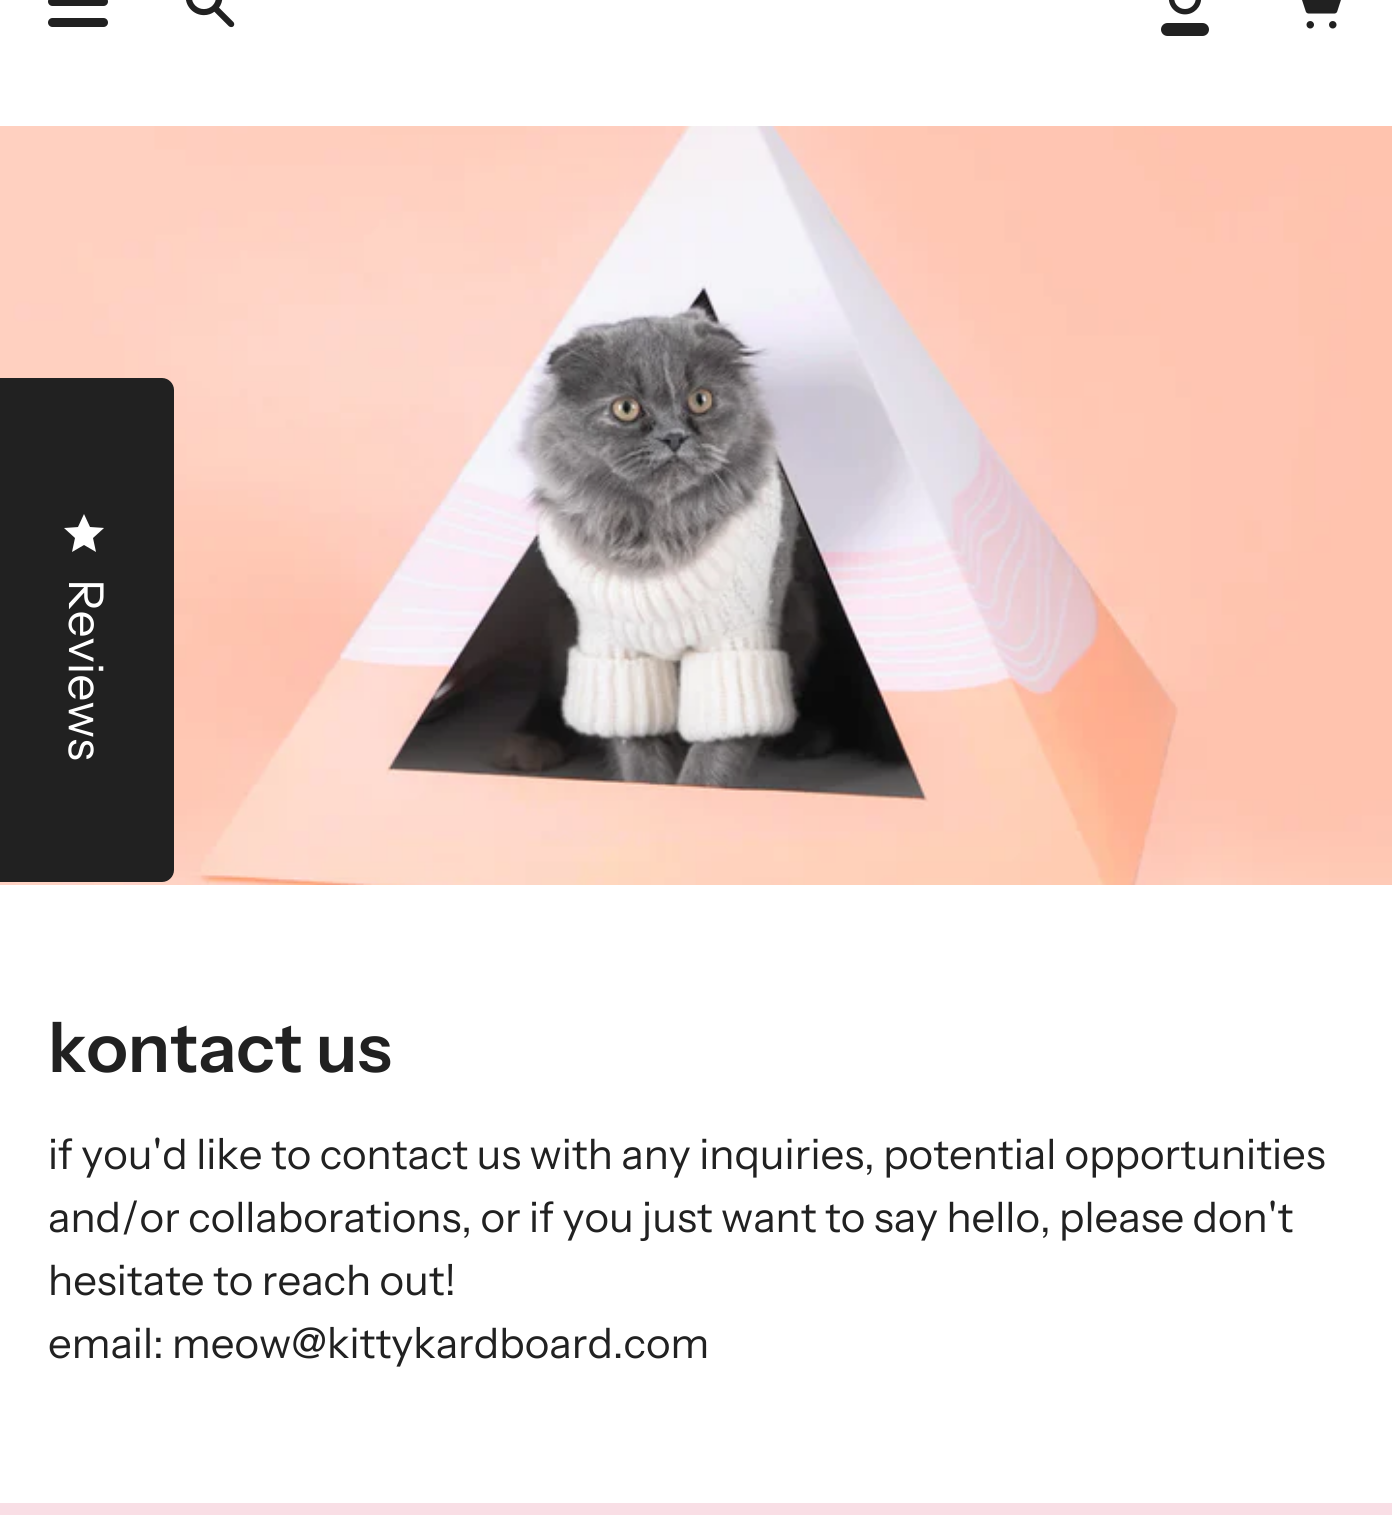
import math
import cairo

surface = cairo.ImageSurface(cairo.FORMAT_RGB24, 1392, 1515)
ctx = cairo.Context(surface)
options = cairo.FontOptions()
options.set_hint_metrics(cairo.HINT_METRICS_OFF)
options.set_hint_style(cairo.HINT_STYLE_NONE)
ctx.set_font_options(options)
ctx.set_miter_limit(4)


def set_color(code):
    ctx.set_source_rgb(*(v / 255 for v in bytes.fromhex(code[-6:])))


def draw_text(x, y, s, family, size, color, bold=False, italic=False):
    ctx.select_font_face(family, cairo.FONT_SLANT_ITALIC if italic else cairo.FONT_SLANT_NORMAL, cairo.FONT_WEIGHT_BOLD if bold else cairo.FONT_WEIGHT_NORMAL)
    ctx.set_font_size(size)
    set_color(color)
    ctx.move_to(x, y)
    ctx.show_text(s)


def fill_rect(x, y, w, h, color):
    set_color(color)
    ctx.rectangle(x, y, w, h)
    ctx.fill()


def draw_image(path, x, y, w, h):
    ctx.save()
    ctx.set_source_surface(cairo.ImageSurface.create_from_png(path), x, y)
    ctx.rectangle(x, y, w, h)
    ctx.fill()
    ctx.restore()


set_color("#ffffff")
ctx.paint()
draw_image("assets/img4.png", 0, 126, 1392, 759)
set_color("#212121")
ctx.new_path()
ctx.move_to(-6, 378)
ctx.line_to(162, 378)
ctx.curve_to(168.5, 378, 174, 383.5, 174, 390)
ctx.line_to(174, 870)
ctx.curve_to(174, 876.5, 168.5, 882, 162, 882)
ctx.line_to(-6, 882)
ctx.close_path()
ctx.fill()
set_color("#ffffff")
ctx.new_path()
ctx.move_to(84, 545)
ctx.line_to(96, 552)
ctx.line_to(93, 538)
ctx.line_to(104, 528)
ctx.line_to(90, 527)
ctx.line_to(84, 514)
ctx.line_to(78, 527)
ctx.line_to(64, 528)
ctx.line_to(75, 538)
ctx.line_to(72, 552)
ctx.close_path()
ctx.fill()
ctx.save()
ctx.translate(69, 579)
ctx.rotate(90.1 * math.pi / 180)
draw_text(0, 0, "Reviews", "Instrument Sans", 48, "#ffffff")
ctx.restore()
set_color("#212121")
ctx.new_path()
ctx.move_to(52.5, -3)
ctx.line_to(99, -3)
ctx.line_to(99, 6)
ctx.line_to(52.5, 6)
ctx.curve_to(50, 6, 48, 4, 48, 1.5)
ctx.curve_to(48, -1, 50, -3, 52.5, -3)
ctx.close_path()
ctx.fill()
ctx.new_path()
ctx.move_to(57, -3)
ctx.line_to(103.5, -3)
ctx.curve_to(106, -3, 108, -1, 108, 1.5)
ctx.curve_to(108, 4, 106, 6, 103.5, 6)
ctx.line_to(57, 6)
ctx.close_path()
ctx.fill()
ctx.new_path()
ctx.move_to(52.5, 18)
ctx.line_to(99, 18)
ctx.line_to(99, 27)
ctx.line_to(52.5, 27)
ctx.curve_to(50, 27, 48, 25, 48, 22.5)
ctx.curve_to(48, 20, 50, 18, 52.5, 18)
ctx.close_path()
ctx.fill()
ctx.new_path()
ctx.move_to(57, 18)
ctx.line_to(103.5, 18)
ctx.curve_to(106, 18, 108, 20, 108, 22.5)
ctx.curve_to(108, 25, 106, 27, 103.5, 27)
ctx.line_to(57, 27)
ctx.close_path()
ctx.fill()
draw_image("assets/img1.png", 186, 0, 49, 28)
draw_image("assets/img2.png", 1161, 0, 48, 36)
draw_image("assets/img3.png", 1302, 0, 39, 29)
draw_text(48, 1072, "kontact us", "Instrument Sans SemiBold", 69, "#212121")
draw_text(48, 1169, "if you'd like to contact us with any inquiries, potential opportunities", "Instrument Sans", 42, "#212121")
draw_text(48, 1232, "and/or collaborations, or if you just want to say hello, please don't", "Instrument Sans", 42, "#212121")
draw_text(48, 1295, "hesitate to reach out!", "Instrument Sans", 42, "#212121")
draw_text(48, 1358, "email: meow@kittykardboard.com", "Instrument Sans", 42, "#212121")
fill_rect(0, 1503, 1392, 12, "#f9dee5")
surface.write_to_png("output.png")
